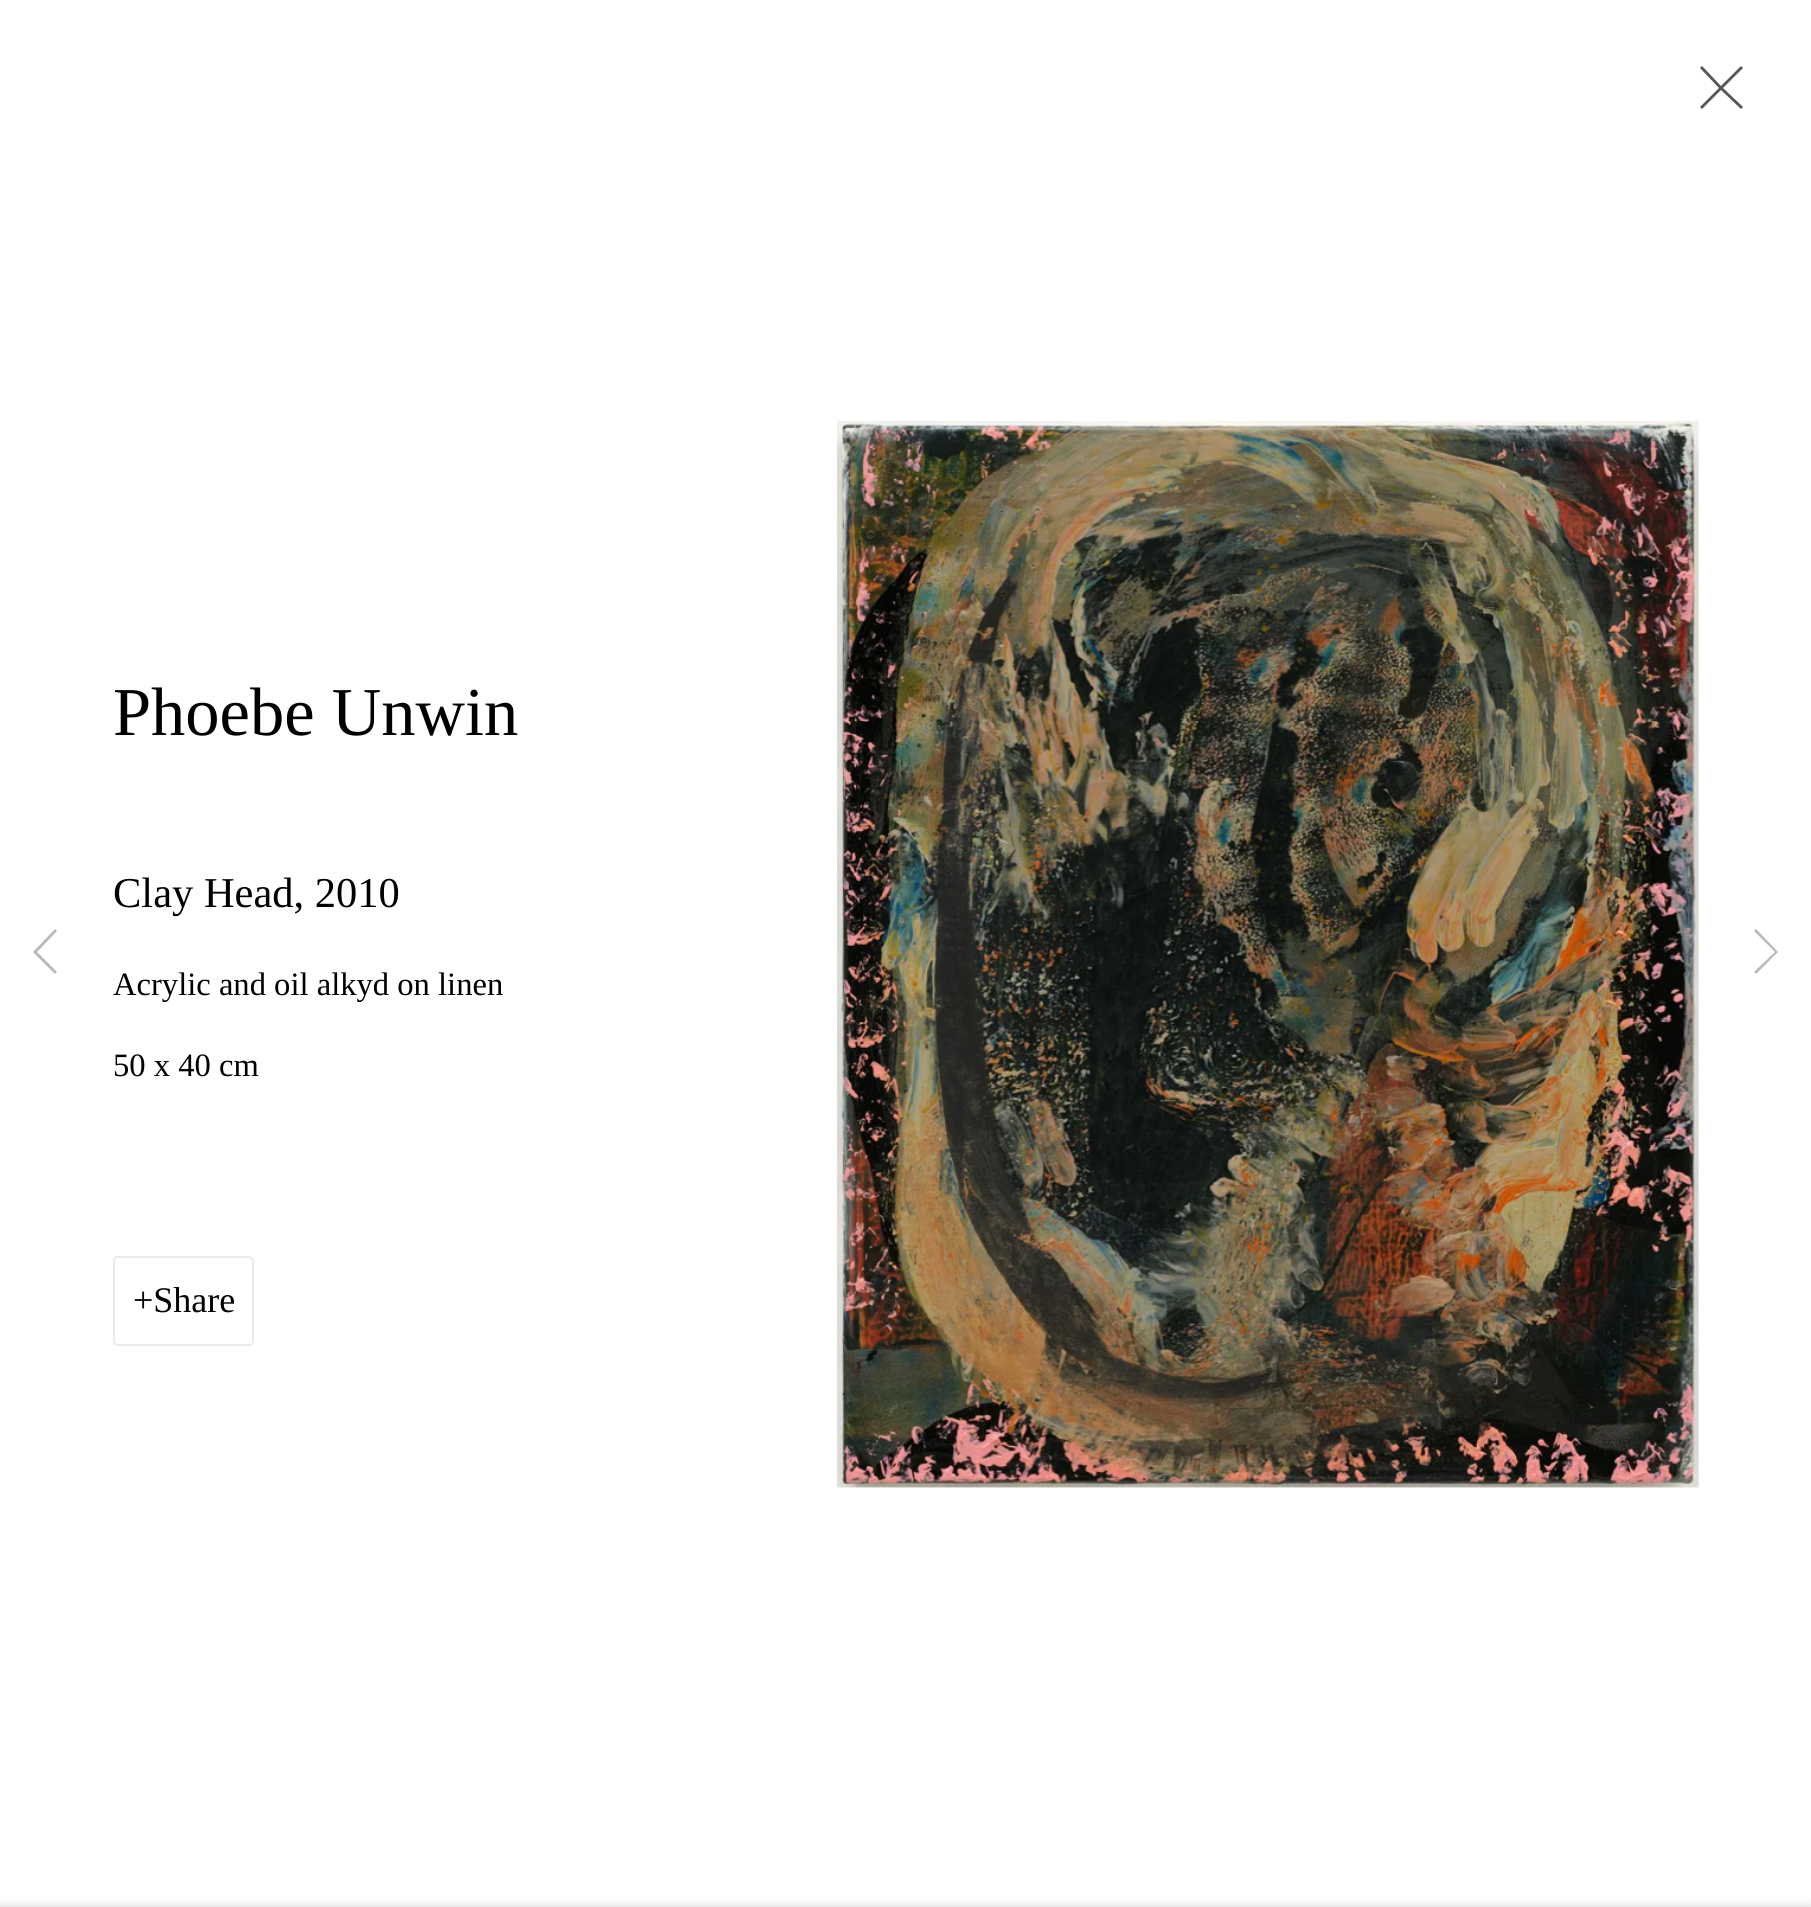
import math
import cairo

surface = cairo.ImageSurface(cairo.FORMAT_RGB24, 1811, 1907)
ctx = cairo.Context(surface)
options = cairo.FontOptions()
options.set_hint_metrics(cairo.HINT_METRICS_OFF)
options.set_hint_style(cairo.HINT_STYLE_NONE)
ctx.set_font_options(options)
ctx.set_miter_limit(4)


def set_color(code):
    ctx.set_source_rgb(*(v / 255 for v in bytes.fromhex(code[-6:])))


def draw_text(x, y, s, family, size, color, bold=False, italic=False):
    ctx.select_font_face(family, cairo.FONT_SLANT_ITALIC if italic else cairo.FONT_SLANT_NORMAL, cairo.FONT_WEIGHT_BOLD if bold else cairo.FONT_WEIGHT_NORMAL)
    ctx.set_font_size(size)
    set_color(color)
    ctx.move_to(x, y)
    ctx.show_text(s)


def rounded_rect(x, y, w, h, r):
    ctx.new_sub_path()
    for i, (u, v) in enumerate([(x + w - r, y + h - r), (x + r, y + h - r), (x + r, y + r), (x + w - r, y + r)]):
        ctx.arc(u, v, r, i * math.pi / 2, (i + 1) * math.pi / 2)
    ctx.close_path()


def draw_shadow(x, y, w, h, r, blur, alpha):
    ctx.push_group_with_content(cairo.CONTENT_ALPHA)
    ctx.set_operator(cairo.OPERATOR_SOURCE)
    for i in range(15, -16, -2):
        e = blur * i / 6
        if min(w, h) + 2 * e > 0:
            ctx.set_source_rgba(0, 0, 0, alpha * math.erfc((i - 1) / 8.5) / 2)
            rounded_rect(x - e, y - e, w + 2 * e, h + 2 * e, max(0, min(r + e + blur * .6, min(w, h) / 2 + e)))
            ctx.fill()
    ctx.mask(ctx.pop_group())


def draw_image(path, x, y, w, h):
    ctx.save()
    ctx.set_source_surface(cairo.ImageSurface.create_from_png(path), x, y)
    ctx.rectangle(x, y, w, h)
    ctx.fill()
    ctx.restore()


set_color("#ffffff")
ctx.paint()
set_color("#555555")
ctx.new_path()
ctx.move_to(1743, 68)
ctx.line_to(1741, 66)
ctx.line_to(1721, 86)
ctx.line_to(1702, 66)
ctx.line_to(1700, 68)
ctx.line_to(1719, 88)
ctx.line_to(1700, 107)
ctx.line_to(1702, 109)
ctx.line_to(1721, 90)
ctx.line_to(1741, 109)
ctx.line_to(1743, 107)
ctx.line_to(1723, 88)
ctx.close_path()
ctx.fill()
draw_text(113, 735, "Phoebe Unwin", "Liberation Serif", 68.5, "#000000")
draw_text(113, 907, "Clay Head, 2010", "Liberation Serif", 42.5, "#000000")
draw_text(113, 995, "Acrylic and oil alkyd on linen", "Liberation Serif", 32.6, "#000000")
draw_text(113, 1076, "50 x 40 cm", "Liberation Serif", 32.6, "#000000")
rounded_rect(114, 1257, 139, 88, 4)
set_color("#ebebeb")
ctx.stroke()
draw_text(133, 1312, "+Share", "Liberation Serif", 36, "#000000")
draw_image("assets/img1.png", 837, 420, 862, 1068)
set_color("#b9b9b9")
ctx.new_path()
ctx.move_to(35, 954)
ctx.line_to(55, 974)
ctx.line_to(57, 972)
ctx.line_to(37, 952)
ctx.line_to(57, 931)
ctx.line_to(55, 929)
ctx.line_to(33, 952)
ctx.close_path()
ctx.fill()
ctx.new_path()
ctx.move_to(1778, 952)
ctx.line_to(1756, 929)
ctx.line_to(1754, 931)
ctx.line_to(1775, 952)
ctx.line_to(1754, 972)
ctx.line_to(1756, 974)
ctx.close_path()
ctx.fill()
set_color("#000000")
draw_shadow(0, 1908, 1811, 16, 0, 5.5, 0.23)
surface.write_to_png("output.png")
